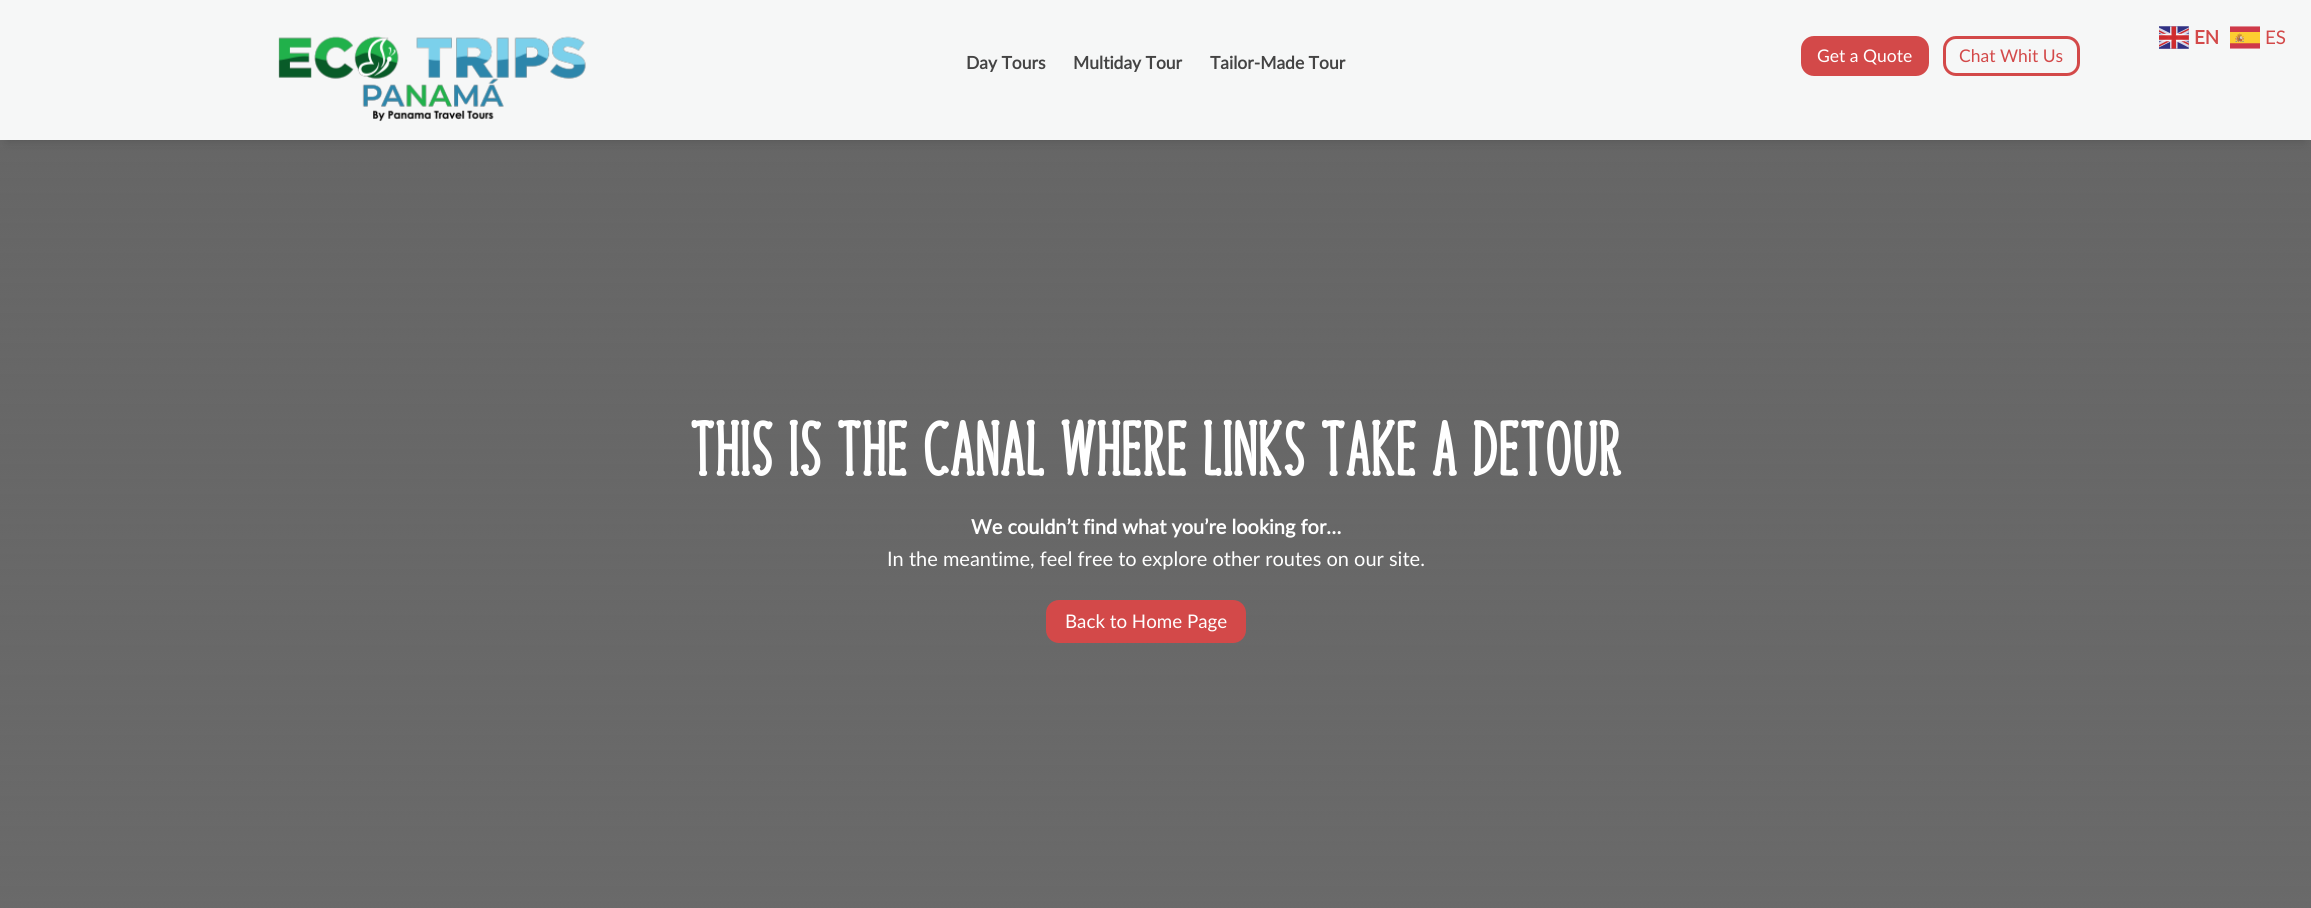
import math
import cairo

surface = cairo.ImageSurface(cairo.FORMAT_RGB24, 2311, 908)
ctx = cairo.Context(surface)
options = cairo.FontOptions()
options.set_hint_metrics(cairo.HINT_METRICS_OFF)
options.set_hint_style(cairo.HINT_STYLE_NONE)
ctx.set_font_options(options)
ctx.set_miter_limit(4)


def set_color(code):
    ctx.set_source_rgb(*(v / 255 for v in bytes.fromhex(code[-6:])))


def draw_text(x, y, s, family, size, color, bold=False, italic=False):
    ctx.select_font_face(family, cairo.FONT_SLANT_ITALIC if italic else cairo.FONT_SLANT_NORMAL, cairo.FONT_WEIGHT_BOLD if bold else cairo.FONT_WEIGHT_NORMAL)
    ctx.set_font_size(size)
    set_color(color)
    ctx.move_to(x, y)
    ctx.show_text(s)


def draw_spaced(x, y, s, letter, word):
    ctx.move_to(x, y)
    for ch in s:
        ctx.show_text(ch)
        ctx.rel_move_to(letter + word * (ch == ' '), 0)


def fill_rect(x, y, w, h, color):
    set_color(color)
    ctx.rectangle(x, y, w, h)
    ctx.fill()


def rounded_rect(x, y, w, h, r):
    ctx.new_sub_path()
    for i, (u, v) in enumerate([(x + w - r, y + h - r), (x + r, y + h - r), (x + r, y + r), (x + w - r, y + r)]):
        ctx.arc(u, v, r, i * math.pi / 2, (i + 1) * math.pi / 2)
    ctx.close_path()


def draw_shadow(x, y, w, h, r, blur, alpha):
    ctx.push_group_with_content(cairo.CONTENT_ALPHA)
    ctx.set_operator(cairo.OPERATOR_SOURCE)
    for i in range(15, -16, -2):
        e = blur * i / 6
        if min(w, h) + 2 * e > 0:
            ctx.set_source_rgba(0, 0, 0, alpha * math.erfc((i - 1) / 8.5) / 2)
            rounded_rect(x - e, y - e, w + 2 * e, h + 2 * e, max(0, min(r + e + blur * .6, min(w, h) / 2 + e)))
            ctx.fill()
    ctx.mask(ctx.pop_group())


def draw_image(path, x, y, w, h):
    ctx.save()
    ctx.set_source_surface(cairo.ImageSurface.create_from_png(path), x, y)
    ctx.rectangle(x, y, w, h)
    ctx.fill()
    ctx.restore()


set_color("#ffffff")
ctx.paint()
draw_image("assets/img4.png", 0, 140, 2311, 768)
set_color("#444444")
draw_shadow(8, 15, 2296, 125, 0, 5.5, 0.6)
fill_rect(0, 0, 2311, 140, "#f6f7f7")
draw_image("assets/img1.png", 2159, 26, 30, 23)
draw_text(2194, 44, "EN", "Lato", 18.75, "#d34949", bold=True)
draw_image("assets/img2.png", 2230, 26, 30, 23)
draw_text(2265, 44, "ES", "Lato", 18.75, "#d34949")
draw_image("assets/img3.png", 278, 36, 308, 86)
draw_text(966, 69, "Day Tours", "Lato", 17.5, "#444444", bold=True)
draw_text(1073, 69, "Multiday Tour", "Lato", 17.5, "#444444", bold=True)
draw_text(1210, 69, "Tailor-Made Tour", "Lato", 17.5, "#444444", bold=True)
set_color("#d34949")
rounded_rect(1802.5, 37.5, 125, 37, 11.5)
ctx.fill_preserve()
ctx.set_line_width(3)
ctx.stroke()
draw_text(1817, 62, "Get a Quote", "Lato", 17.5, "#ffffff")
rounded_rect(1944.5, 37.5, 134, 37, 11.5)
set_color("#d34949")
ctx.stroke()
draw_text(1959, 62, "Chat Whit Us", "Lato", 17.5, "#d34949")
ctx.select_font_face("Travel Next", cairo.FONT_SLANT_NORMAL, cairo.FONT_WEIGHT_BOLD)
ctx.set_font_size(76.25)
set_color("#ffffff")
draw_spaced(690, 476, "This is the canal Where Links Take a Detour", 1.25, 0)
draw_text(971, 534, "We couldn’t find what you’re looking for…", "Lato", 20, "#ffffff", bold=True)
draw_text(887, 566, "In the meantime, feel free to explore other routes on our site.", "Lato", 20, "#ffffff")
set_color("#d34949")
rounded_rect(1046, 600, 200, 43, 13)
ctx.fill()
draw_text(1065, 628, "Back to Home Page", "Lato", 18.75, "#ffffff")
surface.write_to_png("output.png")
